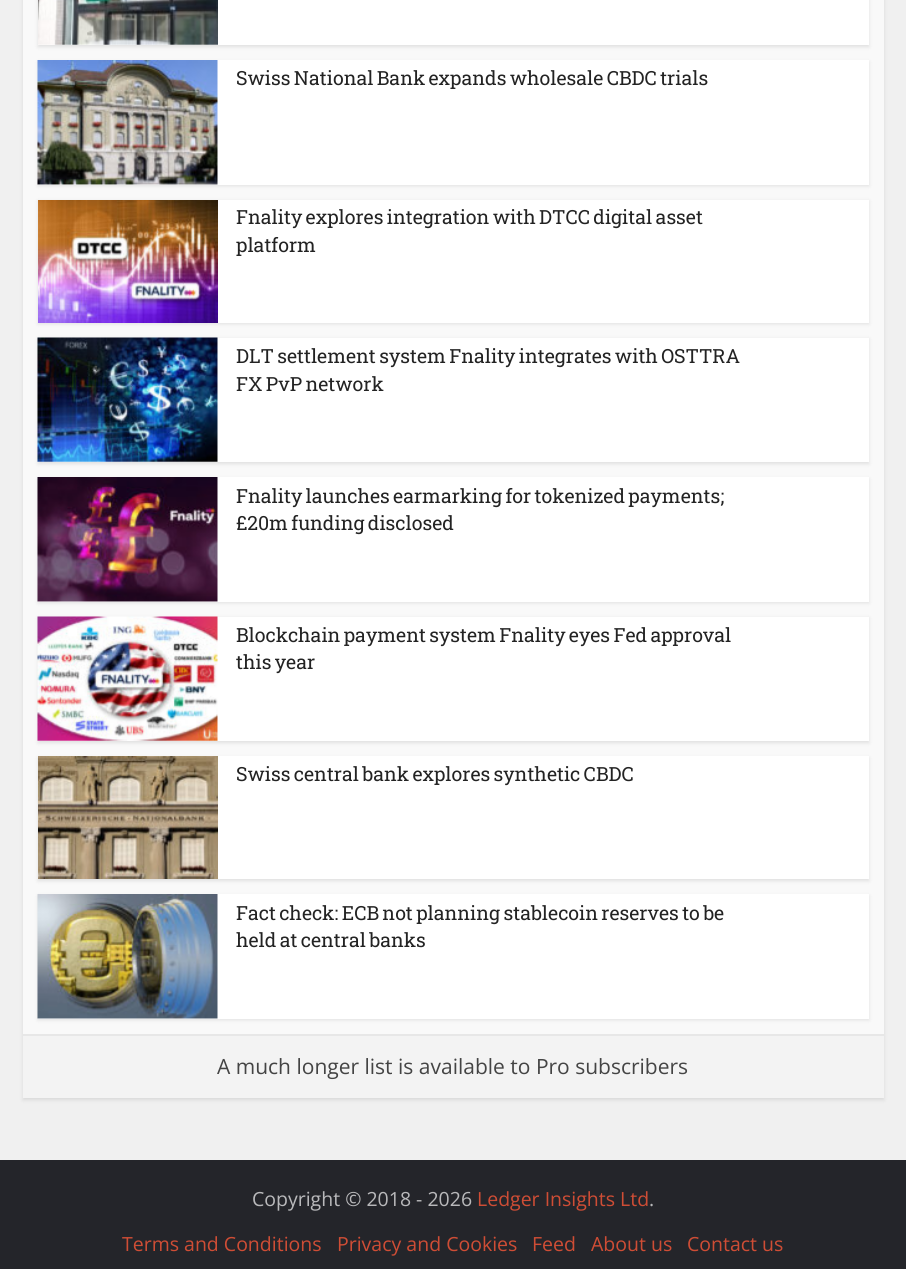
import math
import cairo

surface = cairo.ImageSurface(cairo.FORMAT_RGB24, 906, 1269)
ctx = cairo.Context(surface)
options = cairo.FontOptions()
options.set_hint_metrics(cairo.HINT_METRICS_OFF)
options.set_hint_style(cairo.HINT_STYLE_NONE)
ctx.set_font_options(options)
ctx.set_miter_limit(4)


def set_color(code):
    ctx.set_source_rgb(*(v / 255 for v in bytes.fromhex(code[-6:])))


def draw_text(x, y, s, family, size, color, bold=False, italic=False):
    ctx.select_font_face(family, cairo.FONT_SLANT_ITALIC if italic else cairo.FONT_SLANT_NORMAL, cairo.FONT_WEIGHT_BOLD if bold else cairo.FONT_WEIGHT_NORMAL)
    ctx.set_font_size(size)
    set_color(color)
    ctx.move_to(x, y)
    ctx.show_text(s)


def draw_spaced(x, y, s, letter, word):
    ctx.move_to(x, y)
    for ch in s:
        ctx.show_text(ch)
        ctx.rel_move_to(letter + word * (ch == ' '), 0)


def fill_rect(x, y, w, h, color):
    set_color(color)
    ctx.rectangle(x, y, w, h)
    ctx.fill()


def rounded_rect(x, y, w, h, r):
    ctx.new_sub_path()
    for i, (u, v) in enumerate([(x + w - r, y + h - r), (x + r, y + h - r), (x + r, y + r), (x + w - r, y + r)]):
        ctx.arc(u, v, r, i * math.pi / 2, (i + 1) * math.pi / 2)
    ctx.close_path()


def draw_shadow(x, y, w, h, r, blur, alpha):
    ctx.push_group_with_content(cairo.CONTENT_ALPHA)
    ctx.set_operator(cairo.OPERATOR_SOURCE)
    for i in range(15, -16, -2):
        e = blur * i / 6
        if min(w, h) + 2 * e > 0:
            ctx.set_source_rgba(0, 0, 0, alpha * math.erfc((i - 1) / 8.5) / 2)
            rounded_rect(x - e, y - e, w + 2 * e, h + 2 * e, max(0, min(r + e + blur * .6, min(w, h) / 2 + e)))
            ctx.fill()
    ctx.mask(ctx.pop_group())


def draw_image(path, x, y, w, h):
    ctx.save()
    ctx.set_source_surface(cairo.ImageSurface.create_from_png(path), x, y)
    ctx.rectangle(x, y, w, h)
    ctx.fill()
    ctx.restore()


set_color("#f0f0f0")
ctx.paint()
set_color("#000000")
draw_shadow(23, -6, 861, 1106, 0, 2, 0.1)
fill_rect(23, 0, 861, 1034, "#f9f9f9")
set_color("#000000")
draw_shadow(38, -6, 831, 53, 0, 2, 0.1)
fill_rect(38, 0, 831, 45, "#ffffff")
draw_image("assets/img1.png", 38, 0, 180, 45)
set_color("#000000")
draw_shadow(38, 62, 831, 124, 0, 2, 0.1)
fill_rect(38, 60, 831, 125, "#ffffff")
draw_image("assets/img2.png", 37, 60, 181, 125)
ctx.select_font_face("Roboto Slab")
ctx.set_font_size(19.5)
set_color("#232323")
draw_spaced(236, 85, "Swiss National Bank expands wholesale CBDC trials", 0, -1.5)
set_color("#000000")
draw_shadow(38, 201, 831, 123, 0, 2, 0.1)
fill_rect(218, 200, 651, 123, "#ffffff")
draw_image("assets/img3.png", 38, 200, 180, 123)
set_color("#232323")
draw_spaced(236, 224, "Fnality explores integration with DTCC digital asset", 0, -1.5)
draw_text(236, 252, "platform", "Roboto Slab", 19.5, "#232323")
set_color("#000000")
draw_shadow(38, 339, 831, 125, 0, 2, 0.1)
fill_rect(38, 338, 831, 124, "#ffffff")
draw_image("assets/img4.png", 37, 337, 181, 125)
set_color("#232323")
draw_spaced(236, 363, "DLT settlement system Fnality integrates with OSTTRA", 0, -1.5)
draw_spaced(236, 391, "FX PvP network", 0, -1.5)
set_color("#000000")
draw_shadow(38, 479, 831, 124, 0, 2, 0.1)
fill_rect(38, 477, 831, 125, "#ffffff")
draw_image("assets/img5.png", 37, 477, 181, 125)
set_color("#232323")
draw_spaced(236, 503, "Fnality launches earmarking for tokenized payments;", 0, -1.5)
draw_spaced(236, 530, "£20m funding disclosed", 0, -1.5)
set_color("#000000")
draw_shadow(38, 618, 831, 125, 0, 2, 0.1)
fill_rect(38, 617, 831, 124, "#ffffff")
draw_image("assets/img6.png", 37, 616, 181, 125)
set_color("#232323")
draw_spaced(236, 642, "Blockchain payment system Fnality eyes Fed approval", 0, -1.5)
draw_spaced(236, 669, "this year", 0, -1.5)
set_color("#000000")
draw_shadow(38, 758, 831, 123, 0, 2, 0.1)
fill_rect(218, 756, 651, 123, "#ffffff")
draw_image("assets/img7.png", 38, 756, 180, 123)
set_color("#232323")
draw_spaced(236, 781, "Swiss central bank explores synthetic CBDC", 0, -1.5)
set_color("#000000")
draw_shadow(38, 896, 831, 124, 0, 2, 0.1)
fill_rect(38, 894, 831, 125, "#ffffff")
draw_image("assets/img8.png", 37, 894, 181, 125)
set_color("#232323")
draw_spaced(236, 920, "Fact check: ECB not planning stablecoin reserves to be", 0, -1.5)
draw_spaced(236, 947, "held at central banks", 0, -1.5)
fill_rect(23, 1036, 861, 62, "#f3f3f3")
fill_rect(23, 1034, 861, 2, "#e7e7e7")
draw_text(217, 1074, "A much longer list is available to Pro subscribers", "Open Sans", 21, "#444444")
fill_rect(0, 1160, 906, 109, "#24252a")
draw_text(252, 1206, "Copyright © 2018 - 2026", "Open Sans", 19.5, "#b9b9bb")
draw_text(477, 1206, "Ledger Insights Ltd", "Open Sans", 19.5, "#cf4d35")
draw_text(649, 1206, ".", "Open Sans", 19.5, "#b9b9bb")
draw_text(122, 1251, "Terms and Conditions", "Open Sans", 19.5, "#cf4d35")
draw_text(337, 1251, "Privacy and Cookies", "Open Sans", 19.5, "#cf4d35")
draw_text(532, 1251, "Feed", "Open Sans", 19.5, "#cf4d35")
draw_text(591, 1251, "About us", "Open Sans", 19.5, "#cf4d35")
draw_text(687, 1251, "Contact us", "Open Sans", 19.5, "#cf4d35")
surface.write_to_png("output.png")
